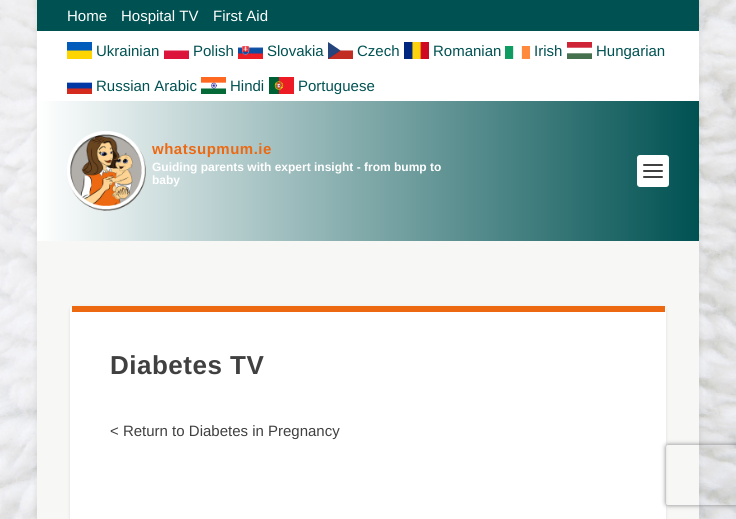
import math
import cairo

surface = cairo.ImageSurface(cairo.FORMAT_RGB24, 736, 519)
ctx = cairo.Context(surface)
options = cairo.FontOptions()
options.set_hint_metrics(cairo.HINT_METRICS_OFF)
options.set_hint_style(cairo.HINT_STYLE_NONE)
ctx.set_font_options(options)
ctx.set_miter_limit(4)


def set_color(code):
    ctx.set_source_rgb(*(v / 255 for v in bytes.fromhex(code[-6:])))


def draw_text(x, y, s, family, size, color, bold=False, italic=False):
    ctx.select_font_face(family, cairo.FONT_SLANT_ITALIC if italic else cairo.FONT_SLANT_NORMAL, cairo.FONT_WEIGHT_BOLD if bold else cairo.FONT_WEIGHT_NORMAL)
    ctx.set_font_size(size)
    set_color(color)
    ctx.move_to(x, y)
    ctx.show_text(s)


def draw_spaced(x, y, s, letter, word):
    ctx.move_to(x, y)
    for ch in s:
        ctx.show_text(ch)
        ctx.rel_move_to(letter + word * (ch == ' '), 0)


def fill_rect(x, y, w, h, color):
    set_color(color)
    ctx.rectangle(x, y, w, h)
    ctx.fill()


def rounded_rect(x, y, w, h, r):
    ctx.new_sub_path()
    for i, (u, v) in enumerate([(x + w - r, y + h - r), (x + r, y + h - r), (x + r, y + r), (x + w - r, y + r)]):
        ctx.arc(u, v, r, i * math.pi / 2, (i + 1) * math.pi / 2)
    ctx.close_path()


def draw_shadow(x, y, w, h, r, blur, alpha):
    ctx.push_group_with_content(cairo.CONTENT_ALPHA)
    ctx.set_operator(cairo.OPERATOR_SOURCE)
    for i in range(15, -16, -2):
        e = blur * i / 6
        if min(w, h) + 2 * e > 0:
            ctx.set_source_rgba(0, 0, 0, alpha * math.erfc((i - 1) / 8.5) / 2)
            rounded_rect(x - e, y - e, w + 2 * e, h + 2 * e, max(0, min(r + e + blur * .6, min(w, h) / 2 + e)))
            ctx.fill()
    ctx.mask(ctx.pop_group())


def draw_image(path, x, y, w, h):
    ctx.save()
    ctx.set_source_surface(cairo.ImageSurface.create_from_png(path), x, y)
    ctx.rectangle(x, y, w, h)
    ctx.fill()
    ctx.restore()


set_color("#ffffff")
ctx.paint()
draw_image("assets/img1.png", 0, 0, 736, 519)
set_color("#000000")
draw_shadow(37, 1, 662, 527, 0, 3, 0.1)
fill_rect(37, 0, 662, 31, "#005152")
draw_text(67, 21, "Home", "Liberation Sans", 15, "#ffffff")
draw_text(121, 21, "Hospital TV", "Liberation Sans", 15, "#ffffff")
draw_text(213, 21, "First Aid", "Liberation Sans", 15, "#ffffff")
fill_rect(37, 31, 662, 70, "#ffffff")
draw_image("assets/img2.png", 67, 42, 25, 17)
draw_text(96, 56, "Ukrainian", "Liberation Sans", 15, "#005152")
draw_image("assets/img3.png", 164, 50, 25, 9)
draw_text(193, 56, "Polish", "Liberation Sans", 15, "#005152")
draw_image("assets/img4.png", 238, 46, 25, 13)
draw_text(267, 56, "Slovakia", "Liberation Sans", 15, "#005152")
draw_image("assets/img5.png", 328, 42, 25, 17)
draw_text(357, 56, "Czech", "Liberation Sans", 15, "#005152")
draw_image("assets/img6.png", 404, 42, 25, 17)
draw_text(433, 56, "Romanian", "Liberation Sans", 15, "#005152")
draw_image("assets/img7.png", 505, 46, 25, 13)
draw_text(534, 56, "Irish", "Liberation Sans", 15, "#005152")
draw_image("assets/img8.png", 567, 42, 25, 17)
draw_text(596, 56, "Hungarian", "Liberation Sans", 15, "#005152")
draw_image("assets/img9.png", 67, 82, 25, 12)
draw_text(96, 91, "Russian Arabic", "Liberation Sans", 15, "#005152")
draw_image("assets/img10.png", 201, 77, 25, 17)
draw_text(230, 91, "Hindi", "Liberation Sans", 15, "#005152")
draw_image("assets/img11.png", 269, 77, 25, 17)
draw_text(298, 91, "Portuguese", "Liberation Sans", 15, "#005152")
gradient = cairo.LinearGradient(37, 171, 699, 171)
gradient.add_color_stop_rgba(0, 1, 1, 1, 1)
gradient.add_color_stop_rgba(1, 0, 0.318, 0.322, 1)
ctx.set_source(gradient)
ctx.rectangle(37, 101, 662, 140)
ctx.fill()
draw_image("assets/img12.png", 67, 131, 79, 80)
ctx.select_font_face("Liberation Sans", cairo.FONT_SLANT_NORMAL, cairo.FONT_WEIGHT_BOLD)
set_color("#ed6911")
draw_spaced(152, 154, "whatsupmum.ie", 0.5, 0)
draw_text(152, 171, "Guiding parents with expert insight - from bump to", "Liberation Sans", 12, "#ffffff", bold=True)
draw_text(152, 184, "baby", "Liberation Sans", 12, "#ffffff", bold=True)
rounded_rect(637, 155, 32, 32, 3)
ctx.fill()
set_color("#404040")
rounded_rect(643, 164, 20, 2, 1)
ctx.fill()
rounded_rect(643, 170, 20, 2, 1)
ctx.fill()
rounded_rect(643, 176, 20, 2, 1)
ctx.fill()
fill_rect(37, 241, 662, 278, "#f7f7f6")
set_color("#000000")
draw_shadow(70, 307, 596, 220, 3, 1.5, 0.1)
set_color("#ffffff")
rounded_rect(70, 306, 596, 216, 3)
ctx.fill()
fill_rect(72, 306, 593, 6, "#ed6911")
ctx.set_font_size(26)
set_color("#404040")
draw_spaced(110, 374, "Diabetes TV", 0.5, 0)
draw_text(110, 436, "< Return to Diabetes in Pregnancy", "Liberation Sans", 15, "#404040")
ctx.save()
ctx.set_fill_rule(cairo.FILL_RULE_EVEN_ODD)
ctx.new_path()
ctx.move_to(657, 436)
ctx.line_to(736, 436)
ctx.line_to(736, 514)
ctx.line_to(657, 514)
ctx.close_path()
ctx.move_to(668, 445)
ctx.line_to(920, 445)
ctx.curve_to(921, 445, 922, 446, 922, 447)
ctx.line_to(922, 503)
ctx.curve_to(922, 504, 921, 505, 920, 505)
ctx.line_to(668, 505)
ctx.curve_to(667, 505, 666, 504, 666, 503)
ctx.line_to(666, 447)
ctx.curve_to(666, 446, 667, 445, 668, 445)
ctx.close_path()
ctx.clip()
set_color("#808080")
draw_shadow(666, 445, 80, 60, 2, 2.5, 1)
ctx.restore()
surface.write_to_png("output.png")
